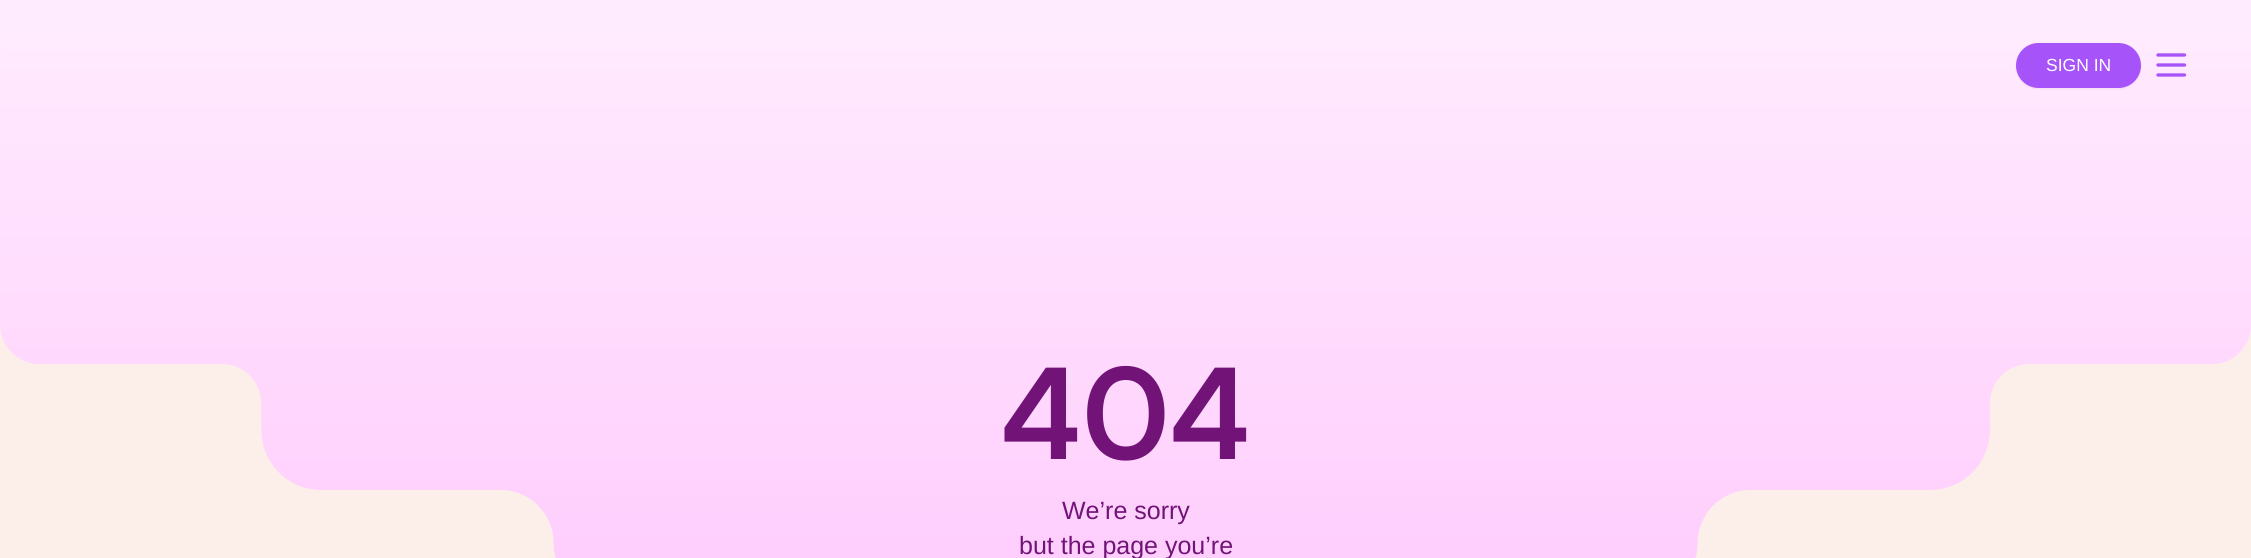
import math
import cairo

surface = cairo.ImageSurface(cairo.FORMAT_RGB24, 2251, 558)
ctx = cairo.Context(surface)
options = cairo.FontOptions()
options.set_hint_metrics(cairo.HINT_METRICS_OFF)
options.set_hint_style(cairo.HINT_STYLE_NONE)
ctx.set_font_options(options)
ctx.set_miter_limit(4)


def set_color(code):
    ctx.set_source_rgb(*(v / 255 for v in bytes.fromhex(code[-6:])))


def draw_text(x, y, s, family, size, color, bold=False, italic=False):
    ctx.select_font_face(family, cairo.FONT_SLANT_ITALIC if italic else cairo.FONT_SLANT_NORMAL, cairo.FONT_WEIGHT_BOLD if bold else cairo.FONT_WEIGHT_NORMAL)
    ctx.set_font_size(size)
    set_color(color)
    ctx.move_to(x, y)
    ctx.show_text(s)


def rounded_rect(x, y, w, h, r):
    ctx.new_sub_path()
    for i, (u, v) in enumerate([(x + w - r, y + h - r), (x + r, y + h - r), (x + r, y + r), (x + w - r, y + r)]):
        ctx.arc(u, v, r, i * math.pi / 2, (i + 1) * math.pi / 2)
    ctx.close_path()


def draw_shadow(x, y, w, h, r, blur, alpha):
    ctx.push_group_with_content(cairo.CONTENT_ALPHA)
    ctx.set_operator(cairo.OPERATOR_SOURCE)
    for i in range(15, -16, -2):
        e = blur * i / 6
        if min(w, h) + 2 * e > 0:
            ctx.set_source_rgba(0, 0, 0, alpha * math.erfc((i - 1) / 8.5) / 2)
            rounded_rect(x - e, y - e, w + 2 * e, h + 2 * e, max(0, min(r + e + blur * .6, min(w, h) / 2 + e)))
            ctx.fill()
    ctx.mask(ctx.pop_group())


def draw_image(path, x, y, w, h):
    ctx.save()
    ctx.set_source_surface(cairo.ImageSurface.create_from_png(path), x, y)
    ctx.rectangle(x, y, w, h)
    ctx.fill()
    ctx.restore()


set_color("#fcefea")
ctx.paint()
draw_image("assets/img1.png", 0, 0, 2251, 558)
set_color("#000000")
draw_shadow(2016, 44, 125, 45, 22.5, 1, 0.05)
set_color("#a753fa")
rounded_rect(2016, 43, 125, 45, 22.5)
ctx.fill()
draw_text(2046, 71, "SIGN IN", "Liberation Sans", 17.5, "#ffffff")
ctx.new_path()
ctx.move_to(2158, 65)
ctx.line_to(2184.5, 65)
ctx.move_to(2158, 55)
ctx.line_to(2184.5, 55)
ctx.move_to(2158, 75)
ctx.line_to(2184.5, 75)
set_color("#a753fa")
ctx.set_line_width(3.3)
ctx.set_line_cap(cairo.LINE_CAP_ROUND)
ctx.set_line_join(cairo.LINE_JOIN_ROUND)
ctx.stroke()
draw_text(1001, 459, "404", "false", 125, "#721378", bold=True)
draw_text(1062, 519, "We’re sorry", "Liberation Sans", 25, "#721378")
draw_text(1019, 554, "but the page you’re", "Liberation Sans", 25, "#721378")
surface.write_to_png("output.png")
